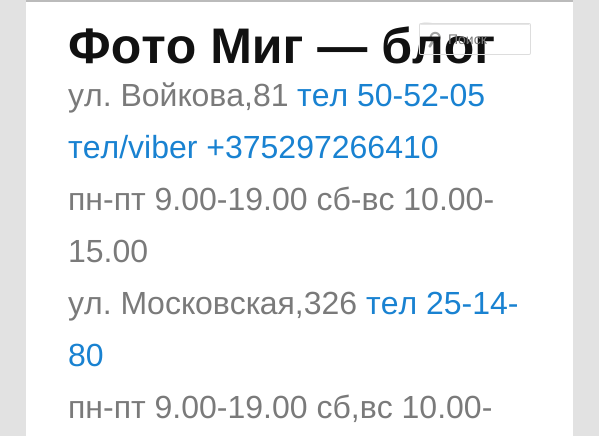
import math
import cairo

surface = cairo.ImageSurface(cairo.FORMAT_RGB24, 599, 436)
ctx = cairo.Context(surface)
options = cairo.FontOptions()
options.set_hint_metrics(cairo.HINT_METRICS_OFF)
options.set_hint_style(cairo.HINT_STYLE_NONE)
ctx.set_font_options(options)
ctx.set_miter_limit(4)


def set_color(code):
    ctx.set_source_rgb(*(v / 255 for v in bytes.fromhex(code[-6:])))


def draw_text(x, y, s, family, size, color, bold=False, italic=False):
    ctx.select_font_face(family, cairo.FONT_SLANT_ITALIC if italic else cairo.FONT_SLANT_NORMAL, cairo.FONT_WEIGHT_BOLD if bold else cairo.FONT_WEIGHT_NORMAL)
    ctx.set_font_size(size)
    set_color(color)
    ctx.move_to(x, y)
    ctx.show_text(s)


def fill_rect(x, y, w, h, color):
    set_color(color)
    ctx.rectangle(x, y, w, h)
    ctx.fill()


def rounded_rect(x, y, w, h, r):
    ctx.new_sub_path()
    for i, (u, v) in enumerate([(x + w - r, y + h - r), (x + r, y + h - r), (x + r, y + r), (x + w - r, y + r)]):
        ctx.arc(u, v, r, i * math.pi / 2, (i + 1) * math.pi / 2)
    ctx.close_path()


def draw_image(path, x, y, w, h):
    ctx.save()
    ctx.set_source_surface(cairo.ImageSurface.create_from_png(path), x, y)
    ctx.rectangle(x, y, w, h)
    ctx.fill()
    ctx.restore()


set_color("#e2e2e2")
ctx.paint()
fill_rect(26, 2, 547, 434, "#ffffff")
fill_rect(26, 0, 547, 2, "#bbbbbb")
draw_text(68, 63, "Фото Миг — блог", "Liberation Sans", 50, "#111111", bold=True)
draw_text(68, 106, "ул. Войкова,81", "Liberation Sans", 32, "#7a7a7a")
draw_text(297, 106, "тел 50-52-05", "Liberation Sans", 32, "#1982d1")
draw_text(68, 158, "тел/viber +375297266410", "Liberation Sans", 32, "#1982d1")
draw_text(68, 210, "пн-пт 9.00-19.00 сб-вс 10.00-", "Liberation Sans", 32, "#7a7a7a")
draw_text(68, 262, "15.00", "Liberation Sans", 32, "#7a7a7a")
draw_text(68, 314, "ул. Московская,326", "Liberation Sans", 32, "#7a7a7a")
draw_text(366, 314, "тел 25-14-", "Liberation Sans", 32, "#1982d1")
draw_text(68, 366, "80", "Liberation Sans", 32, "#1982d1")
draw_text(68, 418, "пн-пт 9.00-19.00 сб,вс 10.00-", "Liberation Sans", 32, "#7a7a7a")
draw_image("assets/img1.png", 428, 31, 13, 17)
set_color("#e6e6e6")
ctx.new_path()
ctx.move_to(421, 25)
ctx.line_to(530, 25)
ctx.line_to(530, 26)
ctx.line_to(529, 24)
ctx.line_to(439, 24)
ctx.curve_to(435, 24, 420, 19, 420, 26)
ctx.curve_to(420, 25, 420, 25, 421, 25)
ctx.close_path()
ctx.fill()
rounded_rect(419.5, 23.5, 111, 31, 1.5)
set_color("#dddddd")
ctx.set_line_width(1)
ctx.stroke()
draw_text(448, 44, "Поиск", "Liberation Sans", 14, "#7a7a7a")
surface.write_to_png("output.png")
